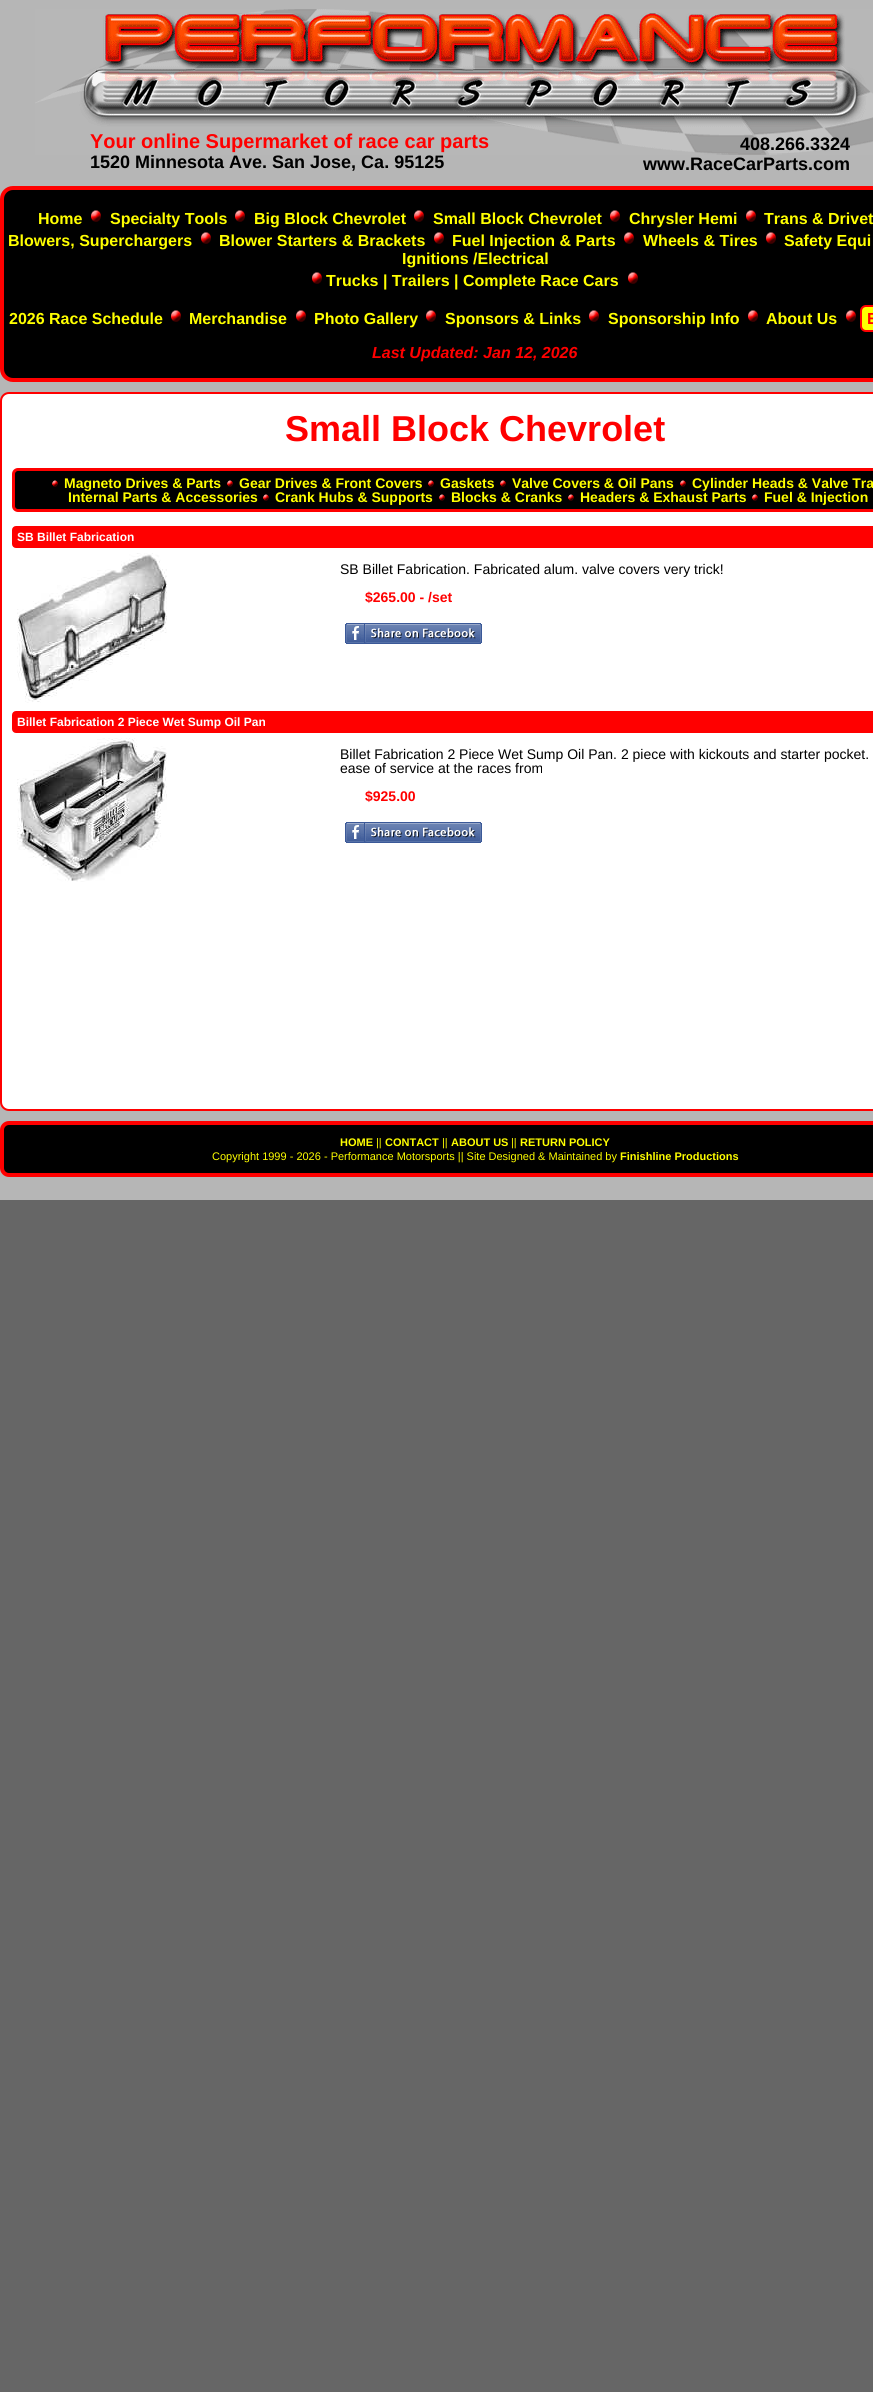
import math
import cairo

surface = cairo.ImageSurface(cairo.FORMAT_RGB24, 873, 2392)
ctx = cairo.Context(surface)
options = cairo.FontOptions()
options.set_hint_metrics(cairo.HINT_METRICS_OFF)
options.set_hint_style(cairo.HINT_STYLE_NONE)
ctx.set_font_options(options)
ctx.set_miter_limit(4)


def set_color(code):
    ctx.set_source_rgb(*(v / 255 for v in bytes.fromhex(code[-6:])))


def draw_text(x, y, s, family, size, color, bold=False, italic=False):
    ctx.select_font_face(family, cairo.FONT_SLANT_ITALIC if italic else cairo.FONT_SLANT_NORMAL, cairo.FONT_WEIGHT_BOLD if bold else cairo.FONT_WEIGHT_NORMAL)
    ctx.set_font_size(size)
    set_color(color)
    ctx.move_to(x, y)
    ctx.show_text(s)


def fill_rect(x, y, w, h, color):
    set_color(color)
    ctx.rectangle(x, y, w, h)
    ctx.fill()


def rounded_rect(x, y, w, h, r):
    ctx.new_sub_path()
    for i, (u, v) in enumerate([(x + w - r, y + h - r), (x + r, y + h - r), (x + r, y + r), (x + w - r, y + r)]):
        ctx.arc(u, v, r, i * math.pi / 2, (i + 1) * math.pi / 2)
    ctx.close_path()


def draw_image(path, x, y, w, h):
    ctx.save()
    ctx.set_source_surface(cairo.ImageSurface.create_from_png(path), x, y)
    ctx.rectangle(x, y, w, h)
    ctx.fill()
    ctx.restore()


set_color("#666666")
ctx.paint()
fill_rect(0, 0, 873, 1200, "#b6b6b6")
draw_image("assets/img1.png", 35, 9, 838, 146)
draw_text(90, 148, "Your online Supermarket of race car parts", "Liberation Sans", 20, "#ff0000", bold=True)
draw_text(90, 168, "1520 Minnesota Ave. San Jose, Ca. 95125", "Liberation Sans", 18, "#000000", bold=True)
draw_text(740, 150, "408.266.3324", "Liberation Sans", 18, "#000000", bold=True)
draw_text(643, 170, "www.RaceCarParts.com", "Liberation Sans", 18, "#000000", bold=True)
rounded_rect(2, 188, 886, 192, 11)
ctx.fill_preserve()
set_color("#ff0000")
ctx.set_line_width(4)
ctx.stroke()
draw_text(38, 224, "Home", "Liberation Sans", 16, "#ffff00", bold=True)
draw_image("assets/img2.png", 91, 210, 10, 12)
draw_text(110, 224, "Specialty Tools", "Liberation Sans", 16, "#ffff00", bold=True)
draw_image("assets/img2.png", 235, 210, 10, 12)
draw_text(254, 224, "Big Block Chevrolet", "Liberation Sans", 16, "#ffff00", bold=True)
draw_image("assets/img2.png", 414, 210, 10, 12)
draw_text(433, 224, "Small Block Chevrolet", "Liberation Sans", 16, "#ffff00", bold=True)
draw_image("assets/img2.png", 610, 210, 10, 12)
draw_text(629, 224, "Chrysler Hemi", "Liberation Sans", 16, "#ffff00", bold=True)
draw_image("assets/img2.png", 746, 210, 10, 12)
draw_text(764, 224, "Trans & Drivet", "Liberation Sans", 16, "#ffff00", bold=True)
draw_text(8, 246, "Blowers, Superchargers", "Liberation Sans", 16, "#ffff00", bold=True)
draw_image("assets/img2.png", 201, 232, 10, 12)
draw_text(219, 246, "Blower Starters & Brackets", "Liberation Sans", 16, "#ffff00", bold=True)
draw_image("assets/img2.png", 434, 232, 10, 12)
draw_text(452, 246, "Fuel Injection & Parts", "Liberation Sans", 16, "#ffff00", bold=True)
draw_image("assets/img2.png", 624, 232, 10, 12)
draw_text(643, 246, "Wheels & Tires", "Liberation Sans", 16, "#ffff00", bold=True)
draw_image("assets/img2.png", 766, 232, 10, 12)
draw_text(784, 246, "Safety Equi", "Liberation Sans", 16, "#ffff00", bold=True)
draw_text(402, 264, "Ignitions /Electrical", "Liberation Sans", 16, "#ffff00", bold=True)
draw_image("assets/img2.png", 312, 272, 10, 12)
draw_text(326, 286, "Trucks | Trailers | Complete Race Cars", "Liberation Sans", 16, "#ffff00", bold=True)
draw_image("assets/img2.png", 628, 272, 10, 12)
draw_text(9, 324, "2026 Race Schedule", "Liberation Sans", 16, "#ffff00", bold=True)
draw_image("assets/img2.png", 171, 310, 10, 12)
draw_text(189, 324, "Merchandise", "Liberation Sans", 16, "#ffff00", bold=True)
draw_image("assets/img2.png", 296, 310, 10, 12)
draw_text(314, 324, "Photo Gallery", "Liberation Sans", 16, "#ffff00", bold=True)
draw_image("assets/img2.png", 426, 310, 10, 12)
draw_text(445, 324, "Sponsors & Links", "Liberation Sans", 16, "#ffff00", bold=True)
draw_image("assets/img2.png", 589, 310, 10, 12)
draw_text(608, 324, "Sponsorship Info", "Liberation Sans", 16, "#ffff00", bold=True)
draw_image("assets/img2.png", 748, 310, 10, 12)
draw_text(766, 324, "About Us", "Liberation Sans", 16, "#ffff00", bold=True)
draw_image("assets/img2.png", 846, 310, 10, 12)
rounded_rect(861, 306, 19, 25, 5)
ctx.fill_preserve()
set_color("#ff0000")
ctx.set_line_width(2)
ctx.stroke()
draw_text(867, 324, "E", "Liberation Sans", 16, "#ff0000", bold=True)
draw_text(372, 358, "Last Updated: Jan 12, 2026", "Liberation Sans", 16, "#ff0000", bold=True, italic=True)
set_color("#ffffff")
rounded_rect(1, 393, 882, 717, 8)
ctx.fill_preserve()
set_color("#ff0000")
ctx.stroke()
draw_text(285, 441, "Small Block Chevrolet", "Liberation Sans", 36, "#ff0000", bold=True)
set_color("#000000")
rounded_rect(13.5, 469.5, 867, 41, 4.5)
ctx.fill_preserve()
set_color("#ff0000")
ctx.set_line_width(3)
ctx.stroke()
draw_image("assets/img3.png", 52, 480, 6, 7)
draw_text(64, 488, "Magneto Drives & Parts", "Liberation Sans", 14, "#ffff00", bold=True)
draw_image("assets/img3.png", 227, 480, 6, 7)
draw_text(239, 488, "Gear Drives & Front Covers", "Liberation Sans", 14, "#ffff00", bold=True)
draw_image("assets/img3.png", 428, 480, 6, 7)
draw_text(440, 488, "Gaskets", "Liberation Sans", 14, "#ffff00", bold=True)
draw_image("assets/img3.png", 500, 480, 6, 7)
draw_text(512, 488, "Valve Covers & Oil Pans", "Liberation Sans", 14, "#ffff00", bold=True)
draw_image("assets/img3.png", 680, 480, 6, 7)
draw_text(692, 488, "Cylinder Heads & Valve Tra", "Liberation Sans", 14, "#ffff00", bold=True)
draw_text(68, 502, "Internal Parts & Accessories", "Liberation Sans", 14, "#ffff00", bold=True)
draw_image("assets/img4.png", 263, 494, 6, 7)
draw_text(275, 502, "Crank Hubs & Supports", "Liberation Sans", 14, "#ffff00", bold=True)
draw_image("assets/img3.png", 439, 494, 6, 7)
draw_text(451, 502, "Blocks & Cranks", "Liberation Sans", 14, "#ffff00", bold=True)
draw_image("assets/img4.png", 568, 494, 6, 7)
draw_text(580, 502, "Headers & Exhaust Parts", "Liberation Sans", 14, "#ffff00", bold=True)
draw_image("assets/img4.png", 752, 494, 6, 7)
draw_text(764, 502, "Fuel & Injection", "Liberation Sans", 14, "#ffff00", bold=True)
set_color("#ff0000")
rounded_rect(13, 527, 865, 20, 3)
ctx.fill_preserve()
ctx.set_line_width(2)
ctx.stroke()
draw_text(17, 541, "SB Billet Fabrication", "Liberation Sans", 12, "#ffffff", bold=True)
draw_image("assets/img5.png", 17, 553, 150, 150)
draw_text(340, 574, "SB Billet Fabrication. Fabricated alum. valve covers very trick!", "Liberation Sans", 14, "#000000")
draw_text(365, 602, "$265.00 - /set", "Liberation Sans", 14, "#ff0000", bold=True)
draw_image("assets/img6.png", 345, 623, 137, 21)
rounded_rect(13, 712, 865, 20, 3)
ctx.fill_preserve()
ctx.stroke()
draw_text(17, 726, "Billet Fabrication 2 Piece Wet Sump Oil Pan", "Liberation Sans", 12, "#ffffff", bold=True)
draw_image("assets/img7.png", 17, 738, 150, 144)
draw_text(340, 759, "Billet Fabrication 2 Piece Wet Sump Oil Pan. 2 piece with kickouts and starter pocket.", "Liberation Sans", 14, "#000000")
draw_text(340, 773, "ease of service at the races from", "Liberation Sans", 14, "#000000")
draw_text(365, 801, "$925.00", "Liberation Sans", 14, "#ff0000", bold=True)
draw_image("assets/img6.png", 345, 822, 137, 21)
set_color("#000000")
rounded_rect(2, 1123, 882, 52, 7)
ctx.fill_preserve()
set_color("#ff0000")
ctx.set_line_width(4)
ctx.stroke()
draw_text(340, 1146, "HOME", "Liberation Sans", 11, "#ffff00", bold=True)
draw_text(376, 1146, "||", "Liberation Sans", 11, "#ffff00")
draw_text(385, 1146, "CONTACT", "Liberation Sans", 11, "#ffff00", bold=True)
draw_text(442, 1146, "||", "Liberation Sans", 11, "#ffff00")
draw_text(451, 1146, "ABOUT US", "Liberation Sans", 11, "#ffff00", bold=True)
draw_text(511, 1146, "||", "Liberation Sans", 11, "#ffff00")
draw_text(520, 1146, "RETURN POLICY", "Liberation Sans", 11, "#ffff00", bold=True)
draw_text(212, 1160, "Copyright 1999 - 2026 - Performance Motorsports || Site Designed & Maintained by", "Liberation Sans", 11, "#ffff00")
draw_text(620, 1160, "Finishline Productions", "Liberation Sans", 11, "#ffff00", bold=True)
surface.write_to_png("output.png")
